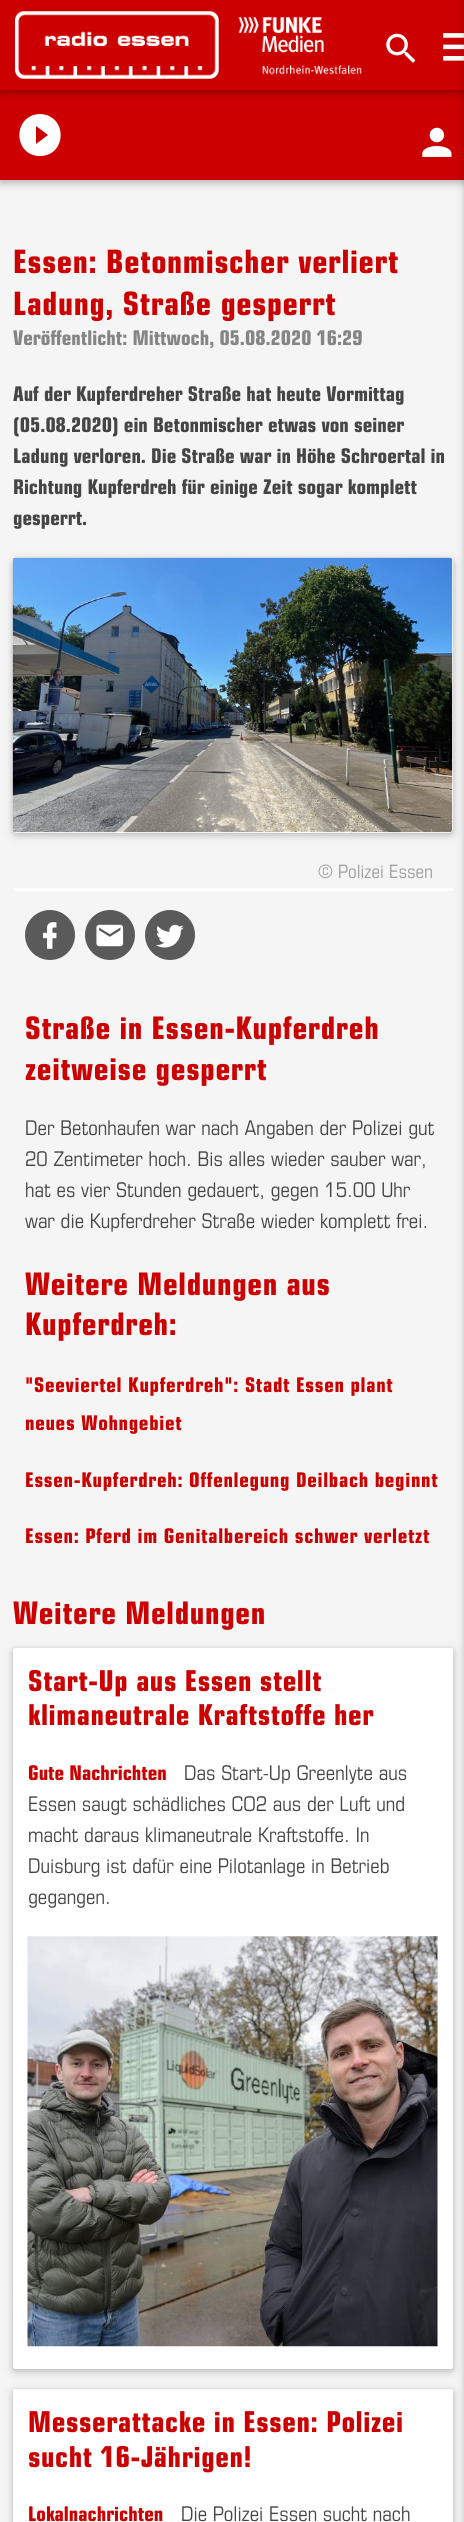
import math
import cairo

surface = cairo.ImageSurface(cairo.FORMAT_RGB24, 464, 2522)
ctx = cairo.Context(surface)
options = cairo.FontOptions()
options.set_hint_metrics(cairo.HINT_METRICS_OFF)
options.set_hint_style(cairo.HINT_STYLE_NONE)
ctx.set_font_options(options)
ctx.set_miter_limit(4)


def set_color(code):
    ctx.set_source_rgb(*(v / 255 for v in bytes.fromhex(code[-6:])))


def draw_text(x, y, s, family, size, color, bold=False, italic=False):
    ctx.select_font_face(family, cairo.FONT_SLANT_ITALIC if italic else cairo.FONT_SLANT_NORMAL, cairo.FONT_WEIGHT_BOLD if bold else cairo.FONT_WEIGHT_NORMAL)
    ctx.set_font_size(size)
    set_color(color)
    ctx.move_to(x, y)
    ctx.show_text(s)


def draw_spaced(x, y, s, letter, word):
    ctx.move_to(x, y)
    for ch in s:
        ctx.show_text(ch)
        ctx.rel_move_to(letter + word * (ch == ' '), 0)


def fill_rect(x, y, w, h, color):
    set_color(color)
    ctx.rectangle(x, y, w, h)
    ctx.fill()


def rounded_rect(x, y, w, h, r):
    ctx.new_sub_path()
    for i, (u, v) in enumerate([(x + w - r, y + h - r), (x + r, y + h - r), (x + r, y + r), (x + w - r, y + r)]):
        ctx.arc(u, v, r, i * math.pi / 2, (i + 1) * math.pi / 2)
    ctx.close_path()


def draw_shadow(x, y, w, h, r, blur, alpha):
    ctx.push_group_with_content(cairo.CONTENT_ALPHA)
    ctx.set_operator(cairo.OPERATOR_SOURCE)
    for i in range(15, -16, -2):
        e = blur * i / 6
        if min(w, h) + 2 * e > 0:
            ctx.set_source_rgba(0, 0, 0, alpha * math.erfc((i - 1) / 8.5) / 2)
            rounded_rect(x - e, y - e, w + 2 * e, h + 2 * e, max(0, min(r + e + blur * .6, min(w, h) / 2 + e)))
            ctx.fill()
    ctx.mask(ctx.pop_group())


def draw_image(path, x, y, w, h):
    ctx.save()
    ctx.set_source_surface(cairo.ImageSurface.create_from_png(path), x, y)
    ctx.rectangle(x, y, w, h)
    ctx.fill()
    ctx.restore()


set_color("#f5f5f5")
ctx.paint()
set_color("#000000")
draw_shadow(0, 3, 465, 180, 0, 6, 0.12)
draw_shadow(0, 3, 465, 180, 0, 3, 0.16)
fill_rect(0, 90, 464, 90, "#cc0000")
set_color("#000000")
draw_shadow(0, 3, 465, 90, 0, 6, 0.12)
draw_shadow(0, 3, 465, 90, 0, 3, 0.16)
fill_rect(0, 0, 464, 90, "#cc0000")
draw_image("assets/img1.png", 15, 11, 204, 68)
draw_image("assets/img2.png", 238, 17, 124, 58)
draw_image("assets/img3.png", 386, 33, 30, 30)
draw_image("assets/img4.png", 443, 33, 21, 28)
set_color("#ffffff")
ctx.new_path()
ctx.move_to(36, 144)
ctx.line_to(36, 126)
ctx.line_to(48, 135)
ctx.close_path()
ctx.move_to(40, 114)
ctx.curve_to(12, 115, 13, 156, 40, 156)
ctx.curve_to(67, 156, 68, 115, 40, 114)
ctx.close_path()
ctx.fill()
draw_image("assets/img5.png", 422, 127, 30, 30)
ctx.select_font_face("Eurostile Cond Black")
ctx.set_font_size(35)
set_color("#cc0000")
draw_spaced(13, 273, "Essen: Betonmischer verliert", 0.7, 0)
draw_spaced(13, 315, "Ladung, Straße gesperrt", 0.7, 0)
draw_text(13, 345, "Veröffentlicht: Mittwoch, 05.08.2020 16:29", "Eurostile Cond Black", 22, "#858585")
draw_text(13, 401, "Auf der Kupferdreher Straße hat heute Vormittag", "Eurostile Cond Black", 22, "#454545")
draw_text(13, 432, "(05.08.2020) ein Betonmischer etwas von seiner", "Eurostile Cond Black", 22, "#454545")
draw_text(13, 463, "Ladung verloren. Die Straße war in Höhe Schroertal in", "Eurostile Cond Black", 22, "#454545")
draw_text(13, 494, "Richtung Kupferdreh für einige Zeit sogar komplett", "Eurostile Cond Black", 22, "#454545")
draw_text(13, 525, "gesperrt.", "Eurostile Cond Black", 22, "#454545")
set_color("#000000")
draw_shadow(13, 560, 440, 275, 4, 6, 0.12)
draw_shadow(13, 560, 440, 275, 4, 3, 0.16)
set_color("#ffffff")
rounded_rect(13, 558, 440, 275, 4)
ctx.fill()
draw_image("assets/img6.png", 12, 557, 441, 276)
draw_text(318, 878, "© Polizei Essen", "Eurostile Cond", 20, "#9d9d9d")
fill_rect(13, 888, 440, 3, "#ffffff")
set_color("#5a5a5a")
ctx.new_path()
ctx.arc(50, 935, 25, 0, 2 * math.pi)
ctx.fill()
draw_image("assets/img7.png", 43, 922, 14, 27)
ctx.arc(110, 935, 25, 0, 2 * math.pi)
ctx.fill()
draw_image("assets/img8.png", 96, 924, 28, 23)
ctx.arc(170, 935, 25, 0, 2 * math.pi)
ctx.fill()
draw_image("assets/img9.png", 156, 924, 28, 24)
ctx.select_font_face("Eurostile Cond Black")
ctx.set_font_size(33.75)
set_color("#cc0000")
draw_spaced(25, 1039, "Straße in Essen-Kupferdreh", 0.7, 0)
draw_spaced(25, 1080, "zeitweise gesperrt", 0.7, 0)
draw_text(25, 1135, "Der Betonhaufen war nach Angaben der Polizei gut", "Eurostile Cond", 22, "#454545")
draw_text(25, 1166, "20 Zentimeter hoch. Bis alles wieder sauber war,", "Eurostile Cond", 22, "#454545")
draw_text(25, 1197, "hat es vier Stunden gedauert, gegen 15.00 Uhr", "Eurostile Cond", 22, "#454545")
draw_text(25, 1228, "war die Kupferdreher Straße wieder komplett frei.", "Eurostile Cond", 22, "#454545")
ctx.select_font_face("Eurostile Cond Black")
ctx.set_font_size(33.75)
set_color("#cc0000")
draw_spaced(25, 1295, "Weitere Meldungen aus", 0.7, 0)
draw_spaced(25, 1335, "Kupferdreh:", 0.7, 0)
ctx.set_font_size(22)
draw_spaced(25, 1392, "\"Seeviertel Kupferdreh\": Stadt Essen plant", 0.7, 0)
draw_spaced(25, 1430, "neues Wohngebiet", 0.7, 0)
draw_spaced(25, 1487, "Essen-Kupferdreh: Offenlegung Deilbach beginnt", 0.7, 0)
draw_spaced(25, 1543, "Essen: Pferd im Genitalbereich schwer verletzt", 0.7, 0)
ctx.set_font_size(33.75)
draw_spaced(13, 1624, "Weitere Meldungen", 0.7, 0)
set_color("#000000")
draw_shadow(13, 1650, 440, 721, 2.5, 6, 0.12)
draw_shadow(13, 1650, 440, 721, 2.5, 3, 0.16)
set_color("#ffffff")
rounded_rect(13, 1648, 440, 721, 2.5)
ctx.fill()
ctx.set_font_size(31.25)
set_color("#cc0000")
draw_spaced(28, 1691, "Start-Up aus Essen stellt", 0.6, 0)
draw_spaced(28, 1725, "klimaneutrale Kraftstoffe her", 0.6, 0)
draw_text(28, 1780, "Gute Nachrichten", "Eurostile Cond Black", 22, "#cc0000")
draw_text(184, 1780, "Das Start-Up Greenlyte aus", "Eurostile Cond", 22, "#454545")
draw_text(28, 1811, "Essen saugt schädliches CO2 aus der Luft und", "Eurostile Cond", 22, "#454545")
draw_text(28, 1842, "macht daraus klimaneutrale Kraftstoffe. In", "Eurostile Cond", 22, "#454545")
draw_text(28, 1873, "Duisburg ist dafür eine Pilotanlage in Betrieb", "Eurostile Cond", 22, "#454545")
draw_text(28, 1904, "gegangen.", "Eurostile Cond", 22, "#454545")
draw_image("assets/img10.png", 27, 1936, 411, 411)
set_color("#000000")
draw_shadow(13, 2391, 440, 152, 2.5, 6, 0.12)
draw_shadow(13, 2391, 440, 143, 2.5, 3, 0.16)
set_color("#ffffff")
rounded_rect(13, 2389, 440, 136, 2.5)
ctx.fill()
ctx.select_font_face("Eurostile Cond Black")
ctx.set_font_size(31.25)
set_color("#cc0000")
draw_spaced(28, 2432, "Messerattacke in Essen: Polizei", 0.6, 0)
draw_spaced(28, 2467, "sucht 16-Jährigen!", 0.6, 0)
draw_text(28, 2521, "Lokalnachrichten", "Eurostile Cond Black", 22, "#cc0000")
draw_text(181, 2521, "Die Polizei Essen sucht nach", "Eurostile Cond", 22, "#454545")
set_color("#000000")
draw_shadow(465, 3, 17, 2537, 0, 6, 0.12)
draw_shadow(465, 3, 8, 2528, 0, 3, 0.16)
surface.write_to_png("output.png")
